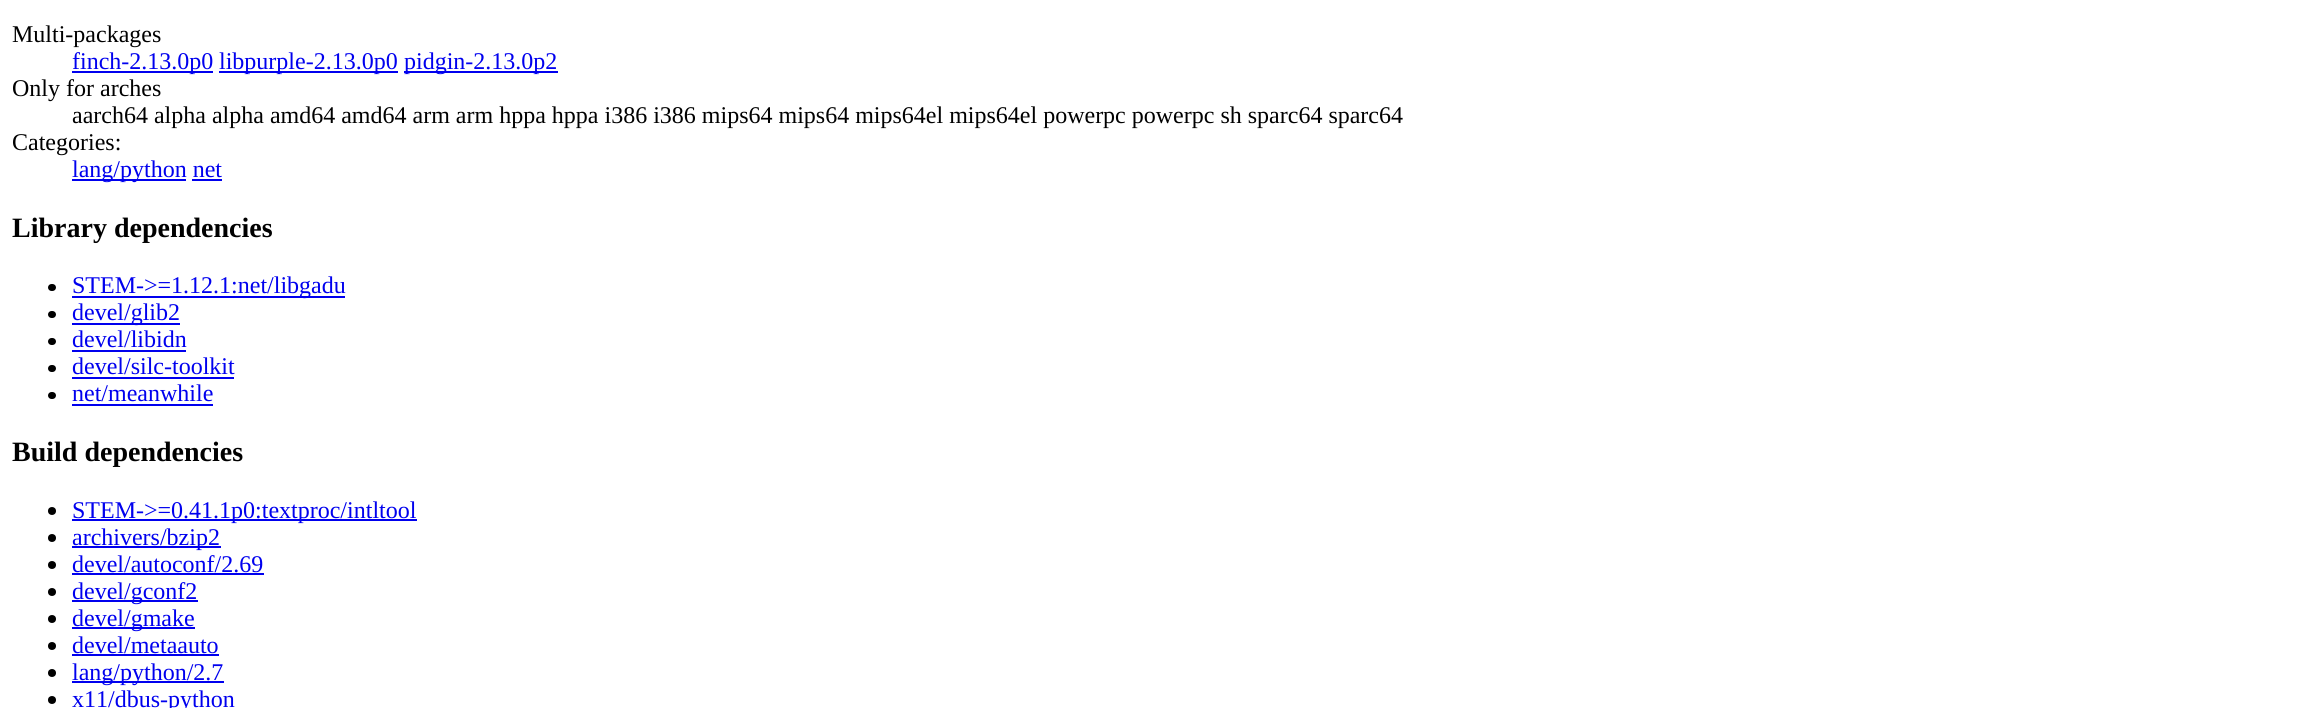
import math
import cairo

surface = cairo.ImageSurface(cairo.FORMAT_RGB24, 2307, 708)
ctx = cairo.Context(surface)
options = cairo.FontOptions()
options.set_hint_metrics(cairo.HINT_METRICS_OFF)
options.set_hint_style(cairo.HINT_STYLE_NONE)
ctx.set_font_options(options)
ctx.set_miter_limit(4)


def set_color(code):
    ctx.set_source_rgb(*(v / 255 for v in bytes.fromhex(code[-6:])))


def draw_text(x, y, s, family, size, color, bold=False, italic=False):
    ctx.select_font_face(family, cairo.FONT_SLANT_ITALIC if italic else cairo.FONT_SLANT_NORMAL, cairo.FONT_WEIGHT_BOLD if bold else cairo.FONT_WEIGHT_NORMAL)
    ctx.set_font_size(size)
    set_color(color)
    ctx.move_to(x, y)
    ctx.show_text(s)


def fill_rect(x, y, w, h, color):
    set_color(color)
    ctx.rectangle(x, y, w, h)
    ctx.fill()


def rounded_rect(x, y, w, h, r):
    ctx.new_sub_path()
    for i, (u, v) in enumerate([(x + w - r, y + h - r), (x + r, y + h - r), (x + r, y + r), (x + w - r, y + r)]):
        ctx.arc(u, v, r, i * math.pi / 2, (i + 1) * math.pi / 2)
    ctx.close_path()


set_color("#ffffff")
ctx.paint()
draw_text(12, 42, "Multi-packages", "Liberation Serif", 24, "#000000")
fill_rect(72, 71, 141, 2, "#0000ee")
draw_text(72, 69, "finch-2.13.0p0", "Liberation Serif", 24, "#0000ee")
fill_rect(219, 71, 179, 2, "#0000ee")
draw_text(219, 69, "libpurple-2.13.0p0", "Liberation Serif", 24, "#0000ee")
fill_rect(404, 71, 154, 2, "#0000ee")
draw_text(404, 69, "pidgin-2.13.0p2", "Liberation Serif", 24, "#0000ee")
draw_text(12, 96, "Only for arches", "Liberation Serif", 24, "#000000")
draw_text(72, 123, "aarch64 alpha alpha amd64 amd64 arm arm hppa hppa i386 i386 mips64 mips64 mips64el mips64el powerpc powerpc sh sparc64 sparc64", "Liberation Serif", 24, "#000000")
draw_text(12, 150, "Categories:", "Liberation Serif", 24, "#000000")
fill_rect(72, 179, 114, 2, "#0000ee")
draw_text(72, 177, "lang/python net", "Liberation Serif", 24, "#0000ee")
fill_rect(192, 179, 30, 2, "#0000ee")
draw_text(12, 237, "Library dependencies", "Liberation Serif", 28, "#000000", bold=True)
rounded_rect(48, 284, 8, 7, 3.5)
ctx.fill()
fill_rect(72, 296, 273, 2, "#0000ee")
draw_text(72, 293, "STEM->=1.12.1:net/libgadu", "Liberation Serif", 24, "#0000ee")
set_color("#000000")
rounded_rect(48, 311, 8, 7, 3.5)
ctx.fill()
fill_rect(72, 323, 108, 2, "#0000ee")
draw_text(72, 320, "devel/glib2", "Liberation Serif", 24, "#0000ee")
set_color("#000000")
rounded_rect(48, 338, 8, 7, 3.5)
ctx.fill()
draw_text(72, 347, "devel/libidn", "Liberation Serif", 24, "#0000ee")
fill_rect(72, 350, 114, 2, "#0000ee")
set_color("#000000")
rounded_rect(48, 365, 8, 7, 3.5)
ctx.fill()
draw_text(72, 374, "devel/silc-toolkit", "Liberation Serif", 24, "#0000ee")
fill_rect(72, 377, 162, 2, "#0000ee")
set_color("#000000")
rounded_rect(48, 392, 8, 7, 3.5)
ctx.fill()
draw_text(72, 401, "net/meanwhile", "Liberation Serif", 24, "#0000ee")
fill_rect(72, 404, 141, 2, "#0000ee")
draw_text(12, 461, "Build dependencies", "Liberation Serif", 28, "#000000", bold=True)
ctx.new_path()
ctx.arc(52, 511, 4, 0, 2 * math.pi)
ctx.fill()
fill_rect(72, 519, 345, 2, "#0000ee")
draw_text(72, 518, "STEM->=0.41.1p0:textproc/intltool", "Liberation Serif", 24, "#0000ee")
set_color("#000000")
ctx.new_path()
ctx.arc(52, 538, 4, 0, 2 * math.pi)
ctx.fill()
fill_rect(72, 546, 149, 2, "#0000ee")
draw_text(72, 545, "archivers/bzip2", "Liberation Serif", 24, "#0000ee")
set_color("#000000")
ctx.new_path()
ctx.arc(52, 565, 4, 0, 2 * math.pi)
ctx.fill()
draw_text(72, 572, "devel/autoconf/2.69", "Liberation Serif", 24, "#0000ee")
fill_rect(72, 573, 192, 2, "#0000ee")
set_color("#000000")
ctx.new_path()
ctx.arc(52, 592, 4, 0, 2 * math.pi)
ctx.fill()
fill_rect(72, 600, 126, 2, "#0000ee")
draw_text(72, 599, "devel/gconf2", "Liberation Serif", 24, "#0000ee")
set_color("#000000")
ctx.new_path()
ctx.arc(52, 619, 4, 0, 2 * math.pi)
ctx.fill()
fill_rect(72, 627, 123, 2, "#0000ee")
draw_text(72, 626, "devel/gmake", "Liberation Serif", 24, "#0000ee")
set_color("#000000")
ctx.new_path()
ctx.arc(52, 646, 4, 0, 2 * math.pi)
ctx.fill()
draw_text(72, 653, "devel/metaauto", "Liberation Serif", 24, "#0000ee")
fill_rect(72, 654, 147, 2, "#0000ee")
set_color("#000000")
ctx.new_path()
ctx.arc(52, 673, 4, 0, 2 * math.pi)
ctx.fill()
fill_rect(72, 681, 152, 2, "#0000ee")
draw_text(72, 680, "lang/python/2.7", "Liberation Serif", 24, "#0000ee")
set_color("#000000")
ctx.new_path()
ctx.arc(52, 700, 4, 0, 2 * math.pi)
ctx.fill()
draw_text(72, 707, "x11/dbus-python", "Liberation Serif", 24, "#0000ee")
surface.write_to_png("output.png")
